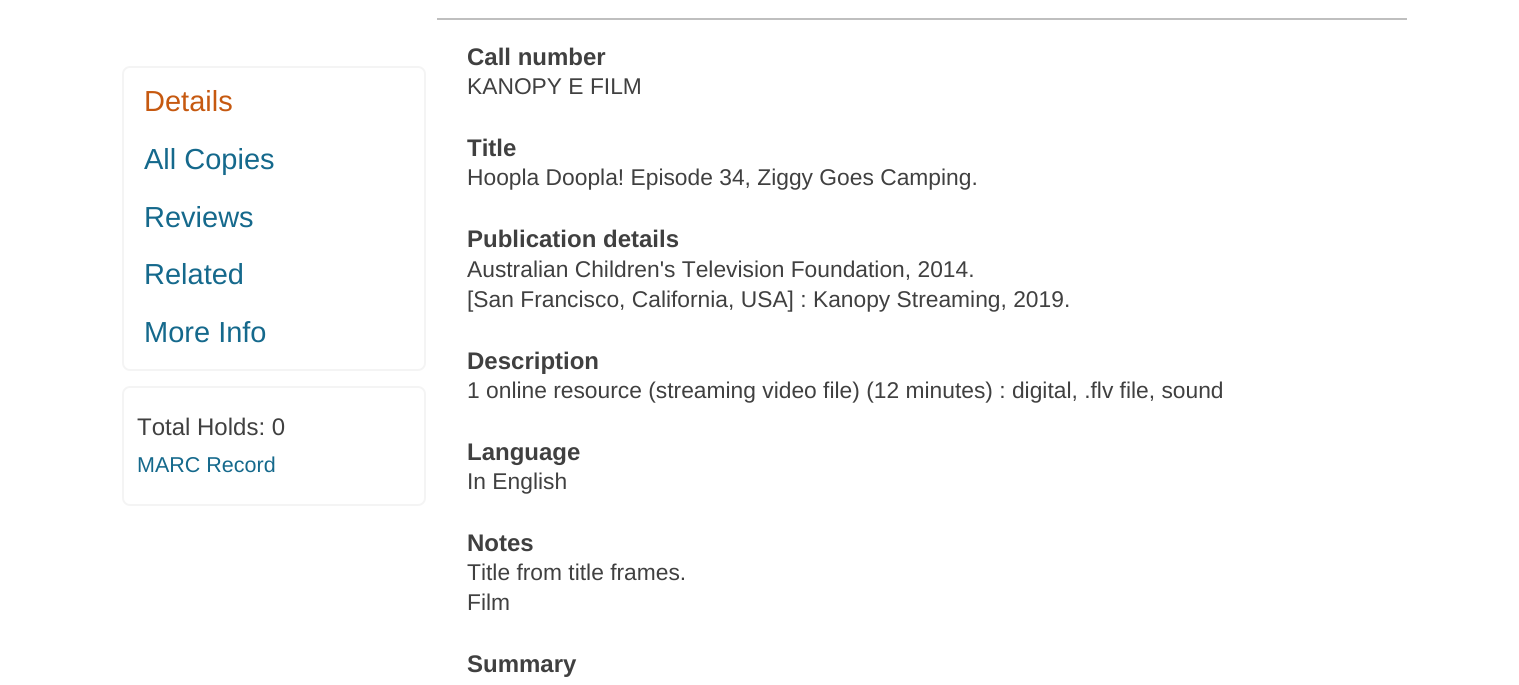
import math
import cairo

surface = cairo.ImageSurface(cairo.FORMAT_RGB24, 1519, 685)
ctx = cairo.Context(surface)
options = cairo.FontOptions()
options.set_hint_metrics(cairo.HINT_METRICS_OFF)
options.set_hint_style(cairo.HINT_STYLE_NONE)
ctx.set_font_options(options)
ctx.set_miter_limit(4)


def set_color(code):
    ctx.set_source_rgb(*(v / 255 for v in bytes.fromhex(code[-6:])))


def draw_text(x, y, s, family, size, color, bold=False, italic=False):
    ctx.select_font_face(family, cairo.FONT_SLANT_ITALIC if italic else cairo.FONT_SLANT_NORMAL, cairo.FONT_WEIGHT_BOLD if bold else cairo.FONT_WEIGHT_NORMAL)
    ctx.set_font_size(size)
    set_color(color)
    ctx.move_to(x, y)
    ctx.show_text(s)


def fill_rect(x, y, w, h, color):
    set_color(color)
    ctx.rectangle(x, y, w, h)
    ctx.fill()


def rounded_rect(x, y, w, h, r):
    ctx.new_sub_path()
    for i, (u, v) in enumerate([(x + w - r, y + h - r), (x + r, y + h - r), (x + r, y + r), (x + w - r, y + r)]):
        ctx.arc(u, v, r, i * math.pi / 2, (i + 1) * math.pi / 2)
    ctx.close_path()


set_color("#ffffff")
ctx.paint()
rounded_rect(123, 67, 302, 303, 7)
set_color("#f4f4f4")
ctx.stroke()
draw_text(144, 111, "Details", "Liberation Sans", 29, "#c65910")
draw_text(144, 169, "All Copies", "Liberation Sans", 29, "#15698c")
draw_text(144, 227, "Reviews", "Liberation Sans", 29, "#15698c")
draw_text(144, 284, "Related", "Liberation Sans", 29, "#15698c")
draw_text(144, 342, "More Info", "Liberation Sans", 29, "#15698c")
rounded_rect(123, 387, 302, 118, 7)
set_color("#f4f4f4")
ctx.stroke()
draw_text(137, 435, "Total Holds: 0", "Liberation Sans", 24, "#404040")
draw_text(137, 472, "MARC Record", "Liberation Sans", 21.5, "#15698c")
fill_rect(437, 18, 970, 2, "#bfbfbf")
draw_text(467, 65, "Call number", "Liberation Sans", 24, "#404040", bold=True)
draw_text(467, 94, "KANOPY E FILM", "Liberation Sans", 22.8, "#404040")
draw_text(467, 156, "Title", "Liberation Sans", 24, "#404040", bold=True)
draw_text(467, 185, "Hoopla Doopla! Episode 34, Ziggy Goes Camping.", "Liberation Sans", 22.8, "#404040")
draw_text(467, 247, "Publication details", "Liberation Sans", 24, "#404040", bold=True)
draw_text(467, 277, "Australian Children's Television Foundation, 2014.", "Liberation Sans", 22.8, "#404040")
draw_text(467, 307, "[San Francisco, California, USA] : Kanopy Streaming, 2019.", "Liberation Sans", 22.8, "#404040")
draw_text(467, 369, "Description", "Liberation Sans", 24, "#404040", bold=True)
draw_text(467, 398, "1 online resource (streaming video file) (12 minutes) : digital, .flv file, sound", "Liberation Sans", 22.8, "#404040")
draw_text(467, 460, "Language", "Liberation Sans", 24, "#404040", bold=True)
draw_text(467, 489, "In English", "Liberation Sans", 22.8, "#404040")
draw_text(467, 551, "Notes", "Liberation Sans", 24, "#404040", bold=True)
draw_text(467, 580, "Title from title frames.", "Liberation Sans", 22.8, "#404040")
draw_text(467, 610, "Film", "Liberation Sans", 22.8, "#404040")
draw_text(467, 672, "Summary", "Liberation Sans", 24, "#404040", bold=True)
surface.write_to_png("output.png")
